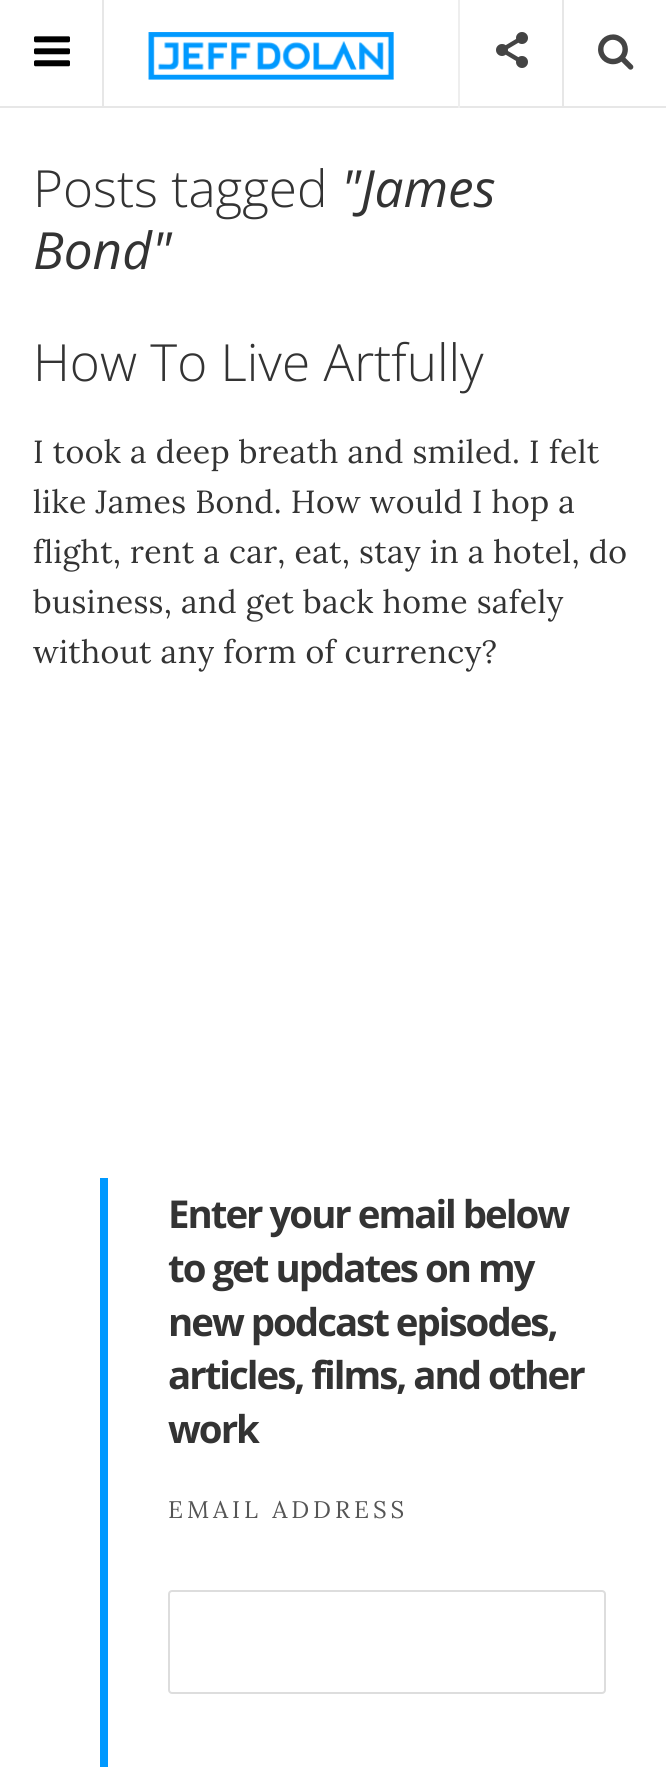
import math
import cairo

surface = cairo.ImageSurface(cairo.FORMAT_RGB24, 666, 1767)
ctx = cairo.Context(surface)
options = cairo.FontOptions()
options.set_hint_metrics(cairo.HINT_METRICS_OFF)
options.set_hint_style(cairo.HINT_STYLE_NONE)
ctx.set_font_options(options)
ctx.set_miter_limit(4)


def set_color(code):
    ctx.set_source_rgb(*(v / 255 for v in bytes.fromhex(code[-6:])))


def draw_text(x, y, s, family, size, color, bold=False, italic=False):
    ctx.select_font_face(family, cairo.FONT_SLANT_ITALIC if italic else cairo.FONT_SLANT_NORMAL, cairo.FONT_WEIGHT_BOLD if bold else cairo.FONT_WEIGHT_NORMAL)
    ctx.set_font_size(size)
    set_color(color)
    ctx.move_to(x, y)
    ctx.show_text(s)


def draw_spaced(x, y, s, letter, word):
    ctx.move_to(x, y)
    for ch in s:
        ctx.show_text(ch)
        ctx.rel_move_to(letter + word * (ch == ' '), 0)


def fill_rect(x, y, w, h, color):
    set_color(color)
    ctx.rectangle(x, y, w, h)
    ctx.fill()


def rounded_rect(x, y, w, h, r):
    ctx.new_sub_path()
    for i, (u, v) in enumerate([(x + w - r, y + h - r), (x + r, y + h - r), (x + r, y + r), (x + w - r, y + r)]):
        ctx.arc(u, v, r, i * math.pi / 2, (i + 1) * math.pi / 2)
    ctx.close_path()


def draw_image(path, x, y, w, h):
    ctx.save()
    ctx.set_source_surface(cairo.ImageSurface.create_from_png(path), x, y)
    ctx.rectangle(x, y, w, h)
    ctx.fill()
    ctx.restore()


set_color("#ffffff")
ctx.paint()
fill_rect(0, 106, 666, 2, "#e7e7e7")
fill_rect(102, 0, 2, 108, "#e7e7e7")
draw_image("assets/img1.png", 34, 36, 36, 31)
draw_image("assets/img2.png", 148, 32, 246, 48)
fill_rect(458, 0, 2, 108, "#eeeeee")
draw_image("assets/img3.png", 496, 32, 32, 36)
fill_rect(562, 0, 2, 108, "#e7e7e7")
draw_image("assets/img4.png", 598, 34, 36, 36)
draw_text(33, 207, "Posts tagged", "Open Sans Light", 51.25, "#333333")
draw_text(341, 207, "\"James", "Open Sans", 51.25, "#333333", italic=True)
draw_text(33, 269, "Bond\"", "Open Sans", 51.25, "#333333", italic=True)
draw_text(33, 381, "How To Live Artfully", "Open Sans Light", 51.25, "#333333")
ctx.select_font_face("Lora")
ctx.set_font_size(32)
draw_spaced(33, 463, "I took a deep breath and smiled. I felt", 0.35, 0)
draw_spaced(33, 513, "like James Bond. How would I hop a", 0.35, 0)
draw_spaced(33, 563, "flight, rent a car, eat, stay in a hotel, do", 0.35, 0)
draw_spaced(33, 613, "business, and get back home safely", 0.35, 0)
draw_spaced(33, 663, "without any form of currency?", 0.35, 0)
fill_rect(100, 1178, 8, 589, "#0099ff")
ctx.select_font_face("Open Sans", cairo.FONT_SLANT_NORMAL, cairo.FONT_WEIGHT_BOLD)
ctx.set_font_size(38.4)
set_color("#333333")
draw_spaced(168, 1228, "Enter your email below", -2, 0)
draw_spaced(168, 1282, "to get updates on my", -2, 0)
draw_spaced(168, 1336, "new podcast episodes,", -2, 0)
draw_spaced(168, 1389, "articles, films, and other", -2, 0)
draw_spaced(168, 1443, "work", -2, 0)
ctx.select_font_face("Lora")
ctx.set_font_size(24)
set_color("#555555")
draw_spaced(168, 1518, "EMAIL ADDRESS", 4, 0)
rounded_rect(169, 1591, 436, 102, 3)
set_color("#dddddd")
ctx.stroke()
surface.write_to_png("output.png")
